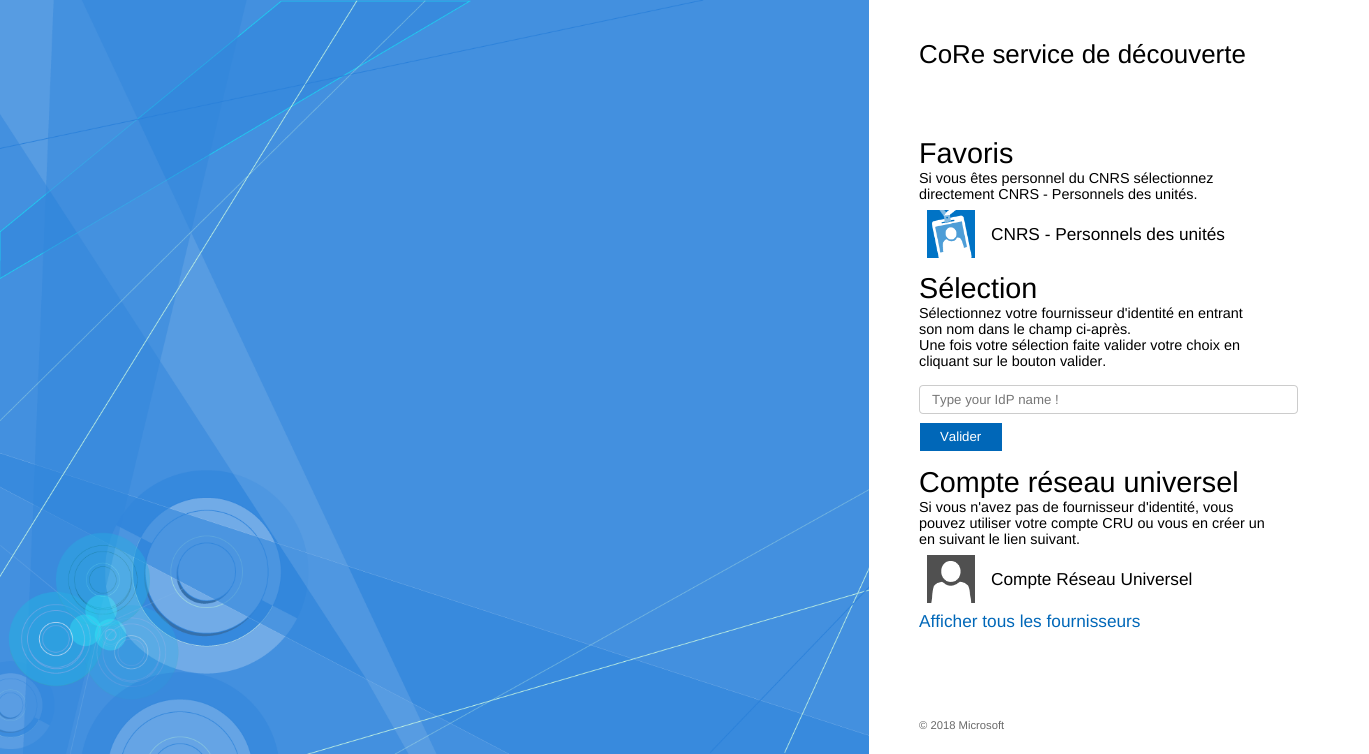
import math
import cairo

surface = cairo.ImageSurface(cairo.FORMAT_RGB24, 1369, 754)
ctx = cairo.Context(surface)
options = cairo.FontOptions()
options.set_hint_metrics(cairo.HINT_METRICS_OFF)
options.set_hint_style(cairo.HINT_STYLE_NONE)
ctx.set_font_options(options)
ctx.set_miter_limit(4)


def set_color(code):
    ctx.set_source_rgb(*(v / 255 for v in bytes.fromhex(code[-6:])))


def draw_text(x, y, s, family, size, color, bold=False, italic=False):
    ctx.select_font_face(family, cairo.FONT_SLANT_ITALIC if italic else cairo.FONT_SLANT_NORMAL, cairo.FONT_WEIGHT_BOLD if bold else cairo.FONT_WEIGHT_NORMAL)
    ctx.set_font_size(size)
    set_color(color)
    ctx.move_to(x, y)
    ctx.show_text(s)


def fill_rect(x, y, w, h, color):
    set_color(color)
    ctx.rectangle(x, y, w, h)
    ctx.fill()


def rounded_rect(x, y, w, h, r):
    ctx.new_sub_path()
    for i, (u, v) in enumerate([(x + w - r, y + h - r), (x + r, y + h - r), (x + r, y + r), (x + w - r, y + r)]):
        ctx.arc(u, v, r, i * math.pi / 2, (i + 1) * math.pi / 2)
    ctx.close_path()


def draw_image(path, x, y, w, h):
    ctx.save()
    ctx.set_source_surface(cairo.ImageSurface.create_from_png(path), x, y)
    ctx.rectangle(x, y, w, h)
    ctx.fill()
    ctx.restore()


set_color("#ffffff")
ctx.paint()
draw_image("assets/img1.png", 0, 0, 869, 754)
draw_text(919, 63, "CoRe service de découverte", "Liberation Sans", 25.9, "#000000")
draw_text(919, 163, "Favoris", "Liberation Sans", 28.75, "#000000")
draw_text(919, 183, "Si vous êtes personnel du CNRS sélectionnez", "Liberation Sans", 14.4, "#000000")
draw_text(919, 199, "directement CNRS - Personnels des unités.", "Liberation Sans", 14.4, "#000000")
draw_image("assets/img2.png", 927, 210, 48, 48)
draw_text(991, 240, "CNRS - Personnels des unités", "Liberation Sans", 17.25, "#000000")
draw_text(919, 298, "Sélection", "Liberation Sans", 28.75, "#000000")
draw_text(919, 318, "Sélectionnez votre fournisseur d'identité en entrant", "Liberation Sans", 14.4, "#000000")
draw_text(919, 334, "son nom dans le champ ci-après.", "Liberation Sans", 14.4, "#000000")
draw_text(919, 350, "Une fois votre sélection faite valider votre choix en", "Liberation Sans", 14.4, "#000000")
draw_text(919, 366, "cliquant sur le bouton valider.", "Liberation Sans", 14.4, "#000000")
rounded_rect(919.5, 385.5, 378, 28, 3.5)
set_color("#cccccc")
ctx.set_line_width(1)
ctx.stroke()
draw_text(932, 404, "Type your IdP name !", "Liberation Sans", 13.25, "#757575")
fill_rect(920, 423, 82, 28, "#0067b8")
draw_text(940, 441, "Valider", "Liberation Sans", 13.25, "#ffffff")
draw_text(919, 492, "Compte réseau universel", "Liberation Sans", 28.75, "#000000")
draw_text(919, 512, "Si vous n'avez pas de fournisseur d'identité, vous", "Liberation Sans", 14.4, "#000000")
draw_text(919, 528, "pouvez utiliser votre compte CRU ou vous en créer un", "Liberation Sans", 14.4, "#000000")
draw_text(919, 544, "en suivant le lien suivant.", "Liberation Sans", 14.4, "#000000")
draw_image("assets/img3.png", 927, 555, 48, 48)
draw_text(991, 585, "Compte Réseau Universel", "Liberation Sans", 17.25, "#000000")
draw_text(919, 627, "Afficher tous les fournisseurs", "Liberation Sans", 17.25, "#0067b8")
draw_text(919, 729, "© 2018 Microsoft", "Liberation Sans", 11.25, "#696969")
surface.write_to_png("output.png")
